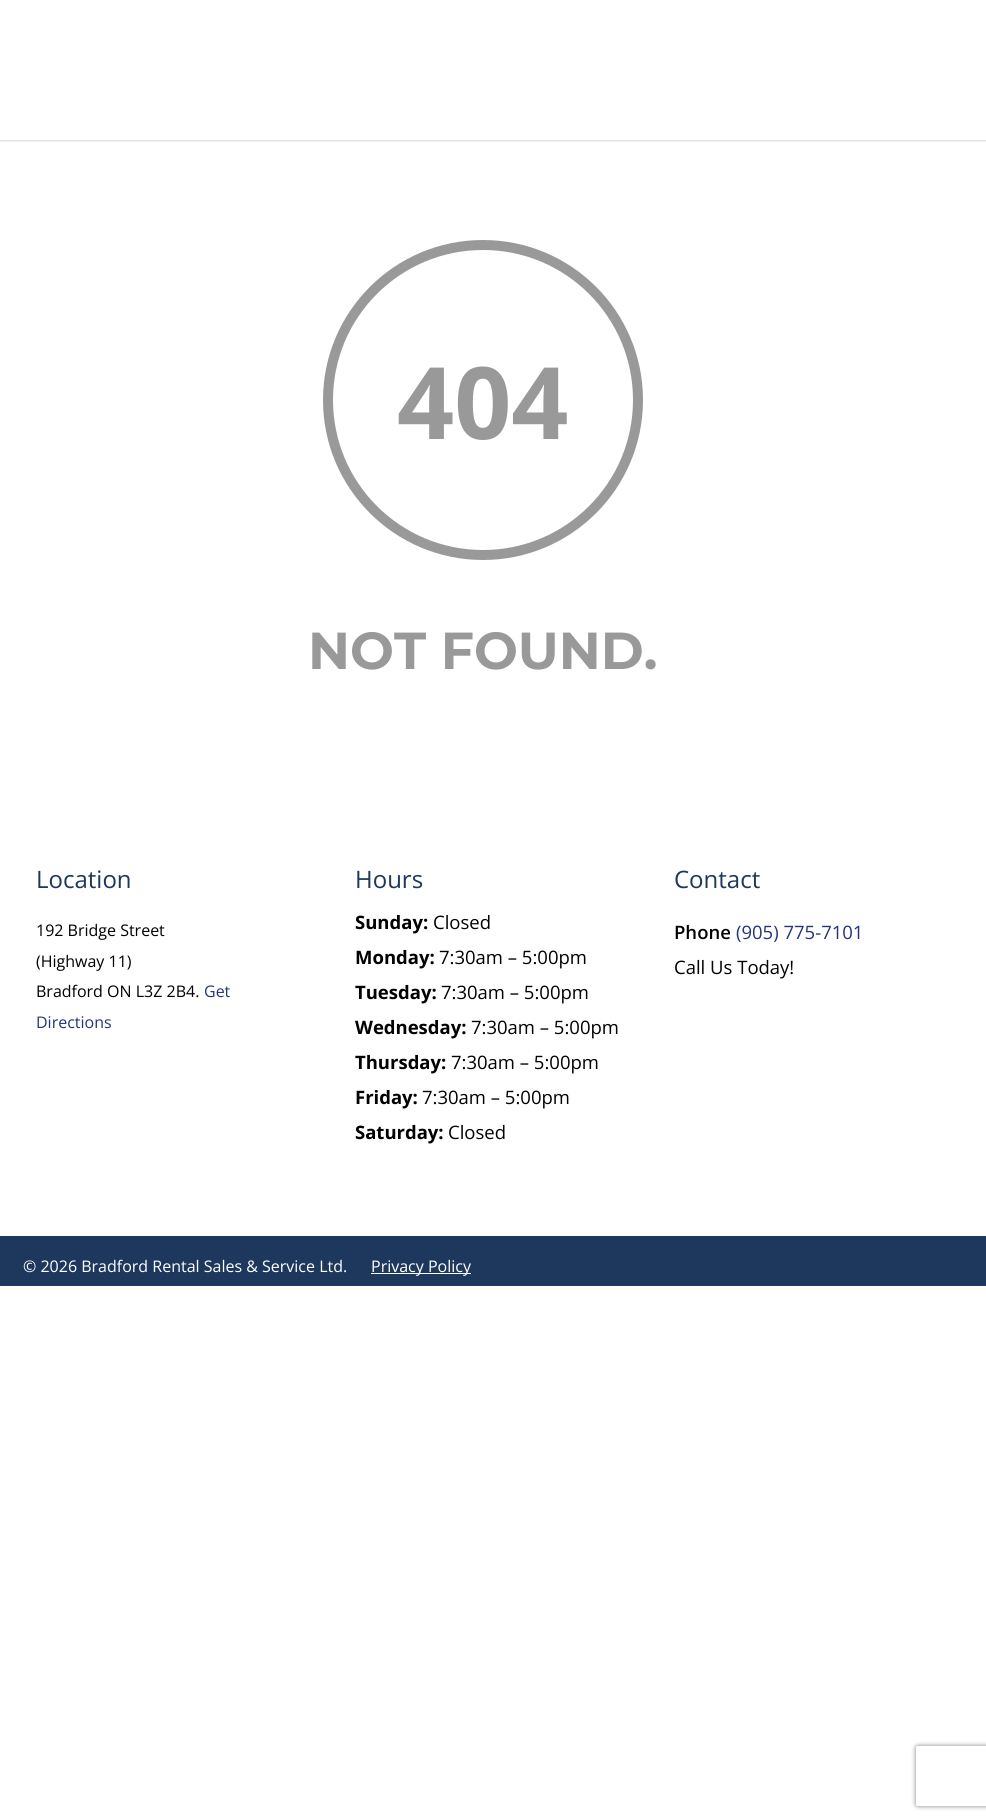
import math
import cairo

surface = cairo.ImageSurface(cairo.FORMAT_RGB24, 986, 1820)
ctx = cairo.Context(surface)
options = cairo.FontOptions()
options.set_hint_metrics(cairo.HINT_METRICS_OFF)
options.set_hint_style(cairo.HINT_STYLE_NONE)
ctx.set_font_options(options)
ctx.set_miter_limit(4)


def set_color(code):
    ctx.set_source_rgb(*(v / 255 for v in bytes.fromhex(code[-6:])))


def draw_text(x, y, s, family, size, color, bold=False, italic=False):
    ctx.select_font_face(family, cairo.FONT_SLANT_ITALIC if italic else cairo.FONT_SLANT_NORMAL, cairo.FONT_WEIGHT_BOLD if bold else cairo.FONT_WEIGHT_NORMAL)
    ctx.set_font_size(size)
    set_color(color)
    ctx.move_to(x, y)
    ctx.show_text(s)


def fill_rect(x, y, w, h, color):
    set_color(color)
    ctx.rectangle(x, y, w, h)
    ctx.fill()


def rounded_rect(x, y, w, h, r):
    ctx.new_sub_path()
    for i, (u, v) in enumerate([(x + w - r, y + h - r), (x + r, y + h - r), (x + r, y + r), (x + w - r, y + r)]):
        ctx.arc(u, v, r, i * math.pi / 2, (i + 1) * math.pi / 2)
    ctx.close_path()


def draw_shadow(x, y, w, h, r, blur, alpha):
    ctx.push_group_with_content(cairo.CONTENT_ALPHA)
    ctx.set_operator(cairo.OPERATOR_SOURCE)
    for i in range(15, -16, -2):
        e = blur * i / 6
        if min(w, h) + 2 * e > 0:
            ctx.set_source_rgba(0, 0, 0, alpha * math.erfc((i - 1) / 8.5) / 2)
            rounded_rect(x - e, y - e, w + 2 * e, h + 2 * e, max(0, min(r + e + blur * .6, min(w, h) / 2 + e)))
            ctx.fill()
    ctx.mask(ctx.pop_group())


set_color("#ffffff")
ctx.paint()
ctx.save()
ctx.rectangle(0, 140, 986, 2)
ctx.clip()
set_color("#000000")
draw_shadow(-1, -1, 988, 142, 0, 1, 0.16)
ctx.restore()
ctx.arc(483, 400, 155, 0, 2 * math.pi)
set_color("#999999")
ctx.set_line_width(10)
ctx.stroke()
draw_text(397, 439, "404", "Open Sans", 100, "#999999", bold=True)
draw_text(308, 669, "NOT FOUND.", "Montserrat", 52, "#999999", bold=True)
draw_text(36, 888, "Location", "Open Sans", 24, "#1e385d")
draw_text(36, 936, "192 Bridge Street", "Open Sans", 16, "#020000")
draw_text(36, 967, "(Highway 11)", "Open Sans", 16, "#020000")
draw_text(36, 997, "Bradford ON L3Z 2B4.", "Open Sans", 16, "#020000")
draw_text(204, 997, "Get", "Open Sans", 16, "#24347a")
draw_text(36, 1028, "Directions", "Open Sans", 16, "#24347a")
draw_text(355, 888, "Hours", "Open Sans", 24, "#1e385d")
draw_text(355, 929, "Sunday:", "Open Sans", 18.5, "#020000", bold=True)
draw_text(433, 929, "Closed", "Open Sans", 18.5, "#020000")
draw_text(355, 964, "Monday:", "Open Sans", 18.5, "#020000", bold=True)
draw_text(439, 964, "7:30am – 5:00pm", "Open Sans", 18.5, "#020000")
draw_text(355, 999, "Tuesday:", "Open Sans", 18.5, "#020000", bold=True)
draw_text(441, 999, "7:30am – 5:00pm", "Open Sans", 18.5, "#020000")
draw_text(355, 1034, "Wednesday:", "Open Sans", 18.5, "#020000", bold=True)
draw_text(471, 1034, "7:30am – 5:00pm", "Open Sans", 18.5, "#020000")
draw_text(355, 1069, "Thursday:", "Open Sans", 18.5, "#020000", bold=True)
draw_text(451, 1069, "7:30am – 5:00pm", "Open Sans", 18.5, "#020000")
draw_text(355, 1104, "Friday:", "Open Sans", 18.5, "#020000", bold=True)
draw_text(422, 1104, "7:30am – 5:00pm", "Open Sans", 18.5, "#020000")
draw_text(355, 1139, "Saturday:", "Open Sans", 18.5, "#020000", bold=True)
draw_text(448, 1139, "Closed", "Open Sans", 18.5, "#020000")
draw_text(674, 888, "Contact", "Open Sans", 24, "#1e385d")
draw_text(674, 939, "Phone", "Open Sans SemiBold", 18.5, "#020000")
draw_text(736, 939, "(905) 775-7101", "Open Sans", 18.5, "#24347a")
draw_text(674, 974, "Call Us Today!", "Open Sans", 18.5, "#020000")
fill_rect(0, 1236, 986, 50, "#1e385d")
draw_text(23, 1272, "© 2026 Bradford Rental Sales & Service Ltd.", "Open Sans", 16, "#ffffff")
fill_rect(371, 1273, 100, 1, "#ffffff")
draw_text(371, 1272, "Privacy Policy", "Open Sans", 16, "#ffffff")
ctx.save()
ctx.set_fill_rule(cairo.FILL_RULE_EVEN_ODD)
ctx.new_path()
ctx.move_to(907, 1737)
ctx.line_to(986, 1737)
ctx.line_to(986, 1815)
ctx.line_to(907, 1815)
ctx.close_path()
ctx.move_to(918, 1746)
ctx.line_to(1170, 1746)
ctx.curve_to(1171, 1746, 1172, 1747, 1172, 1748)
ctx.line_to(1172, 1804)
ctx.curve_to(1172, 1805, 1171, 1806, 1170, 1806)
ctx.line_to(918, 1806)
ctx.curve_to(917, 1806, 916, 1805, 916, 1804)
ctx.line_to(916, 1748)
ctx.curve_to(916, 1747, 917, 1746, 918, 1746)
ctx.close_path()
ctx.clip()
set_color("#808080")
draw_shadow(916, 1746, 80, 60, 2, 2.5, 1)
ctx.restore()
surface.write_to_png("output.png")
